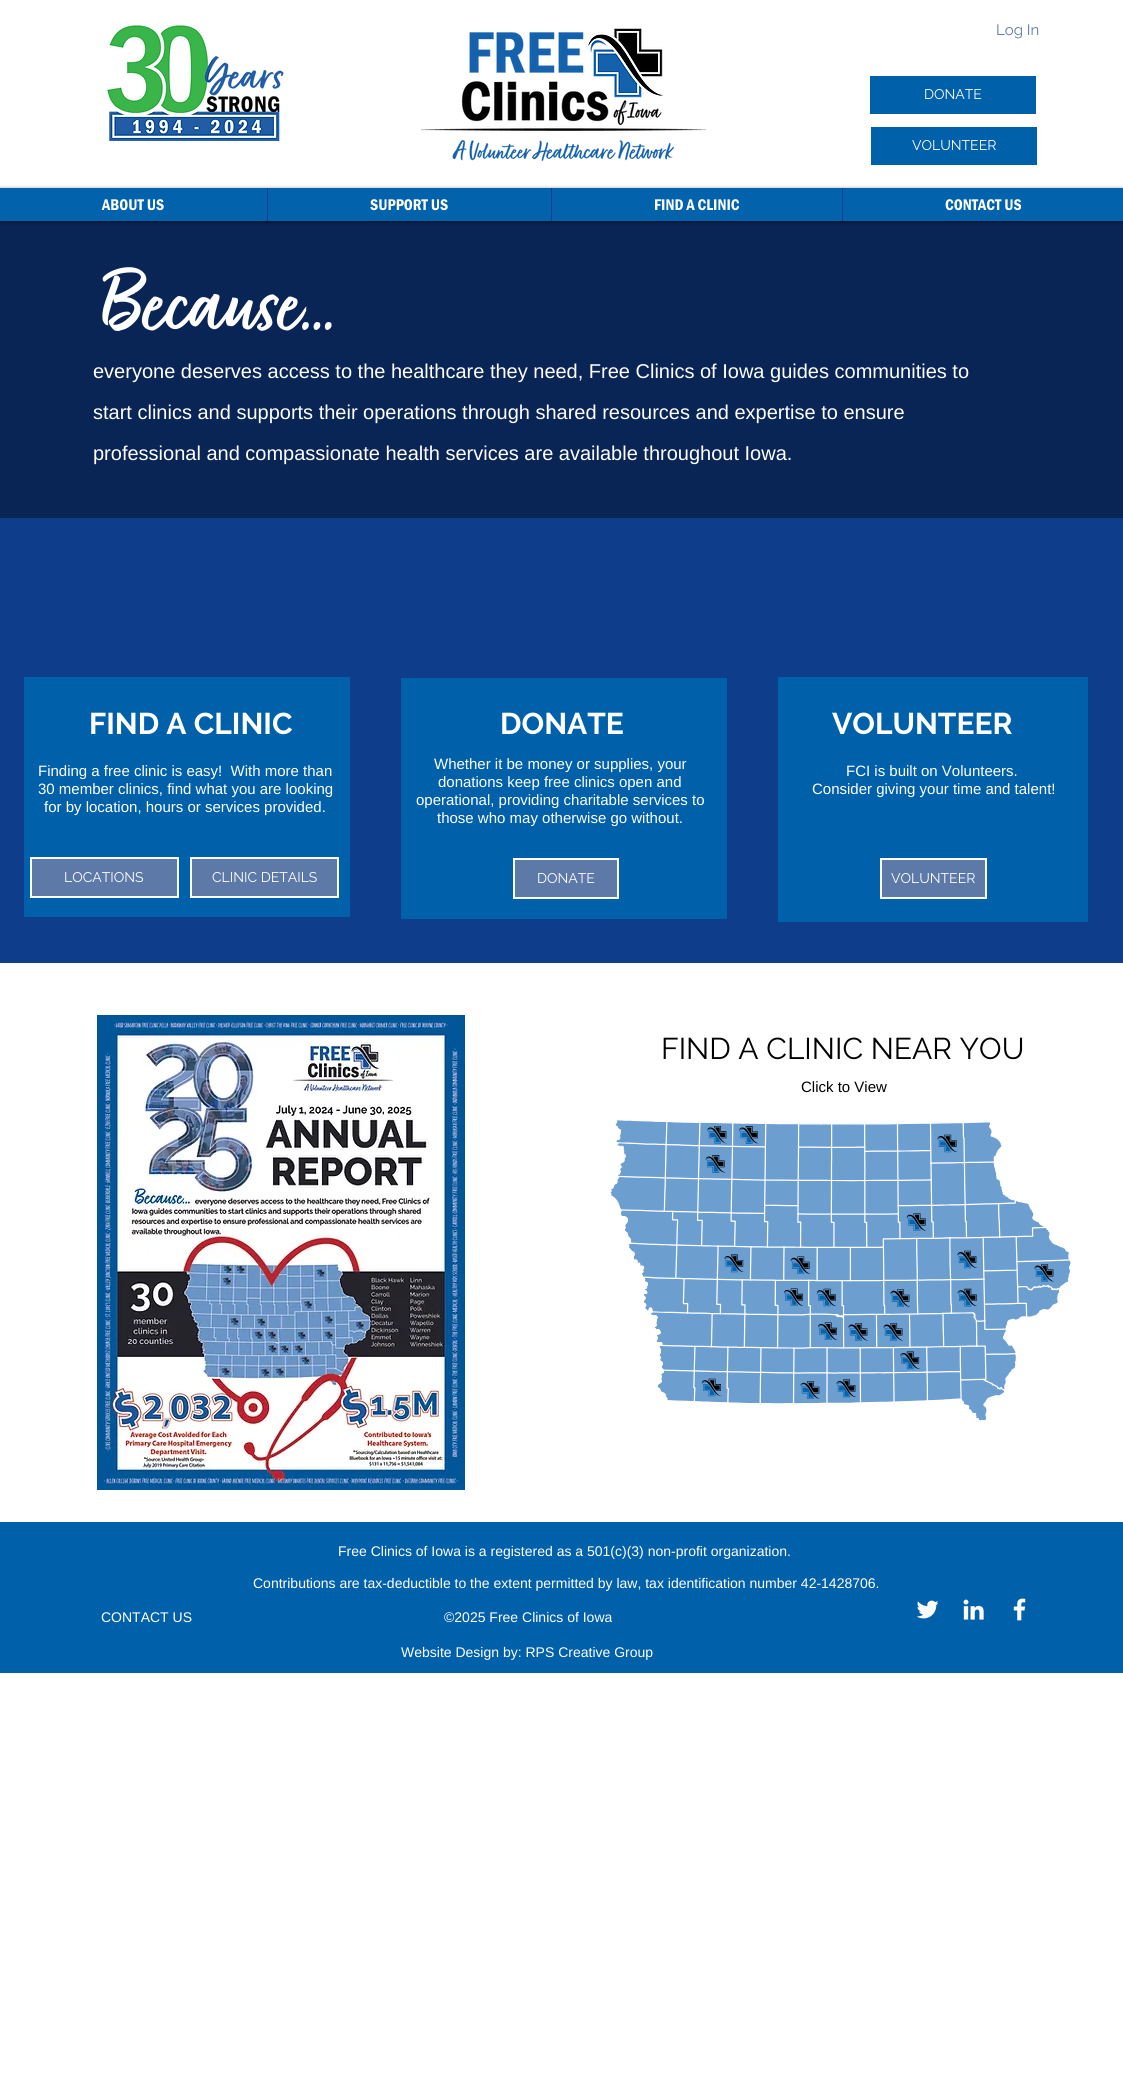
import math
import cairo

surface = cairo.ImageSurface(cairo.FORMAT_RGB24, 1123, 2093)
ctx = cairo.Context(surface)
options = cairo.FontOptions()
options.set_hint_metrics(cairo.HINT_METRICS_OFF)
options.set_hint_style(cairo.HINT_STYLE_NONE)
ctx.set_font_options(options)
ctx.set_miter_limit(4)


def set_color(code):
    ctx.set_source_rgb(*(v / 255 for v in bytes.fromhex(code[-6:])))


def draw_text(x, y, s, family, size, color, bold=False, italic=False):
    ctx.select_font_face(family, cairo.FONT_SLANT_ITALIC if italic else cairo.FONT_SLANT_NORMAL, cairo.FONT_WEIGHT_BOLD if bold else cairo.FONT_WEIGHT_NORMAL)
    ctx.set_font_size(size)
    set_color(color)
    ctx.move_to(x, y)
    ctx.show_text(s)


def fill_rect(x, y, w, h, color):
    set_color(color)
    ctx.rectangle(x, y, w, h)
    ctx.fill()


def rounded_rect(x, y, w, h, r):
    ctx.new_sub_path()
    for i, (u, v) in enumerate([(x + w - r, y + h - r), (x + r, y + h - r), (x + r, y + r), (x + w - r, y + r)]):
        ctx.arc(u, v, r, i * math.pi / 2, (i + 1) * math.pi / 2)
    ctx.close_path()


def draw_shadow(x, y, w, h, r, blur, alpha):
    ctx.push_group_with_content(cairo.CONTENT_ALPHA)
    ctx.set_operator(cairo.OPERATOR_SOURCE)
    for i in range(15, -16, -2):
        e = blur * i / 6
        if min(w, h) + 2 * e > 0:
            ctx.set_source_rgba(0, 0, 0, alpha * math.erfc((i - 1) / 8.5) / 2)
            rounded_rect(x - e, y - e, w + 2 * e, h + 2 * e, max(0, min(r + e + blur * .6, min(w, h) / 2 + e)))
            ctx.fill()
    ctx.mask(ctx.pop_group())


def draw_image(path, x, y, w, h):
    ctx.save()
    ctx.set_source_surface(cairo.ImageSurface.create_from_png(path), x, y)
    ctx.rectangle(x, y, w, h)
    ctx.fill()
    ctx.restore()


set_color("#ffffff")
ctx.paint()
draw_image("assets/img1.png", 107, 25, 177, 116)
draw_image("assets/img2.png", 421, 28, 285, 133)
draw_text(996, 35, "Log In", "Raleway", 15, "#5c79a8")
fill_rect(870, 76, 166, 38, "#0060a9")
draw_text(924, 99, "DONATE", "Raleway", 14, "#ffffff")
fill_rect(871, 127, 166, 38, "#0060a9")
draw_text(912, 150, "VOLUNTEER", "Raleway", 14, "#ffffff")
fill_rect(0, 221, 1123, 297, "#092555")
set_color("#000000")
draw_shadow(0, 189, 1123, 33, 0, 2, 0.6)
fill_rect(0, 188, 1123, 33, "#0262ab")
draw_text(102, 210, "ABOUT US", "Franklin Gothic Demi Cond", 16, "#ffffff")
fill_rect(267, 188, 1, 33, "#0e3d8b")
draw_text(370, 210, "SUPPORT US", "Franklin Gothic Demi Cond", 16, "#ffffff")
fill_rect(551, 188, 1, 33, "#0e3d8b")
draw_text(654, 210, "FIND A CLINIC", "Franklin Gothic Demi Cond", 16, "#ffffff")
fill_rect(842, 188, 1, 33, "#0e3d8b")
draw_text(945, 210, "CONTACT US", "Franklin Gothic Demi Cond", 16, "#ffffff")
draw_text(103, 332, "Because...", "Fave", 99, "#ffffff", bold=True)
draw_text(93, 378, "everyone deserves access to the healthcare they need, Free Clinics of Iowa guides communities to", "Liberation Sans", 20, "#ffffff")
draw_text(93, 419, "start clinics and supports their operations through shared resources and expertise to ensure", "Liberation Sans", 20, "#ffffff")
draw_text(93, 460, "professional and compassionate health services are available throughout Iowa.", "Liberation Sans", 20, "#ffffff")
fill_rect(0, 518, 1123, 445, "#0e3d8b")
fill_rect(24, 677, 326, 240, "#0060a9")
draw_text(89, 734, "FIND A CLINIC", "Raleway", 30, "#ffffff", bold=True)
draw_text(38, 776, "Finding a free clinic is easy!  With more than", "Liberation Sans", 15, "#ffffff")
draw_text(38, 794, "30 member clinics, find what you are looking", "Liberation Sans", 15, "#ffffff")
draw_text(44, 812, "for by location, hours or services provided.", "Liberation Sans", 15, "#ffffff")
set_color("#5c79a8")
ctx.rectangle(31, 858, 147, 39)
ctx.fill_preserve()
set_color("#ffffff")
ctx.stroke()
draw_text(64, 882, "LOCATIONS", "Raleway", 14, "#ffffff")
set_color("#5c79a8")
ctx.rectangle(191, 858, 147, 39)
ctx.fill_preserve()
set_color("#ffffff")
ctx.stroke()
draw_text(212, 882, "CLINIC DETAILS", "Raleway", 14, "#ffffff")
fill_rect(401, 678, 326, 241, "#0060a9")
draw_text(500, 734, "DONATE", "Raleway", 30, "#ffffff", bold=True)
draw_text(434, 769, "Whether it be money or supplies, your", "Liberation Sans", 15, "#ffffff")
draw_text(438, 787, "donations keep free clinics open and", "Liberation Sans", 15, "#ffffff")
draw_text(416, 805, "operational, providing charitable services to", "Liberation Sans", 15, "#ffffff")
draw_text(437, 823, "those who may otherwise go without.", "Liberation Sans", 15, "#ffffff")
set_color("#5c79a8")
ctx.rectangle(514, 859, 104, 39)
ctx.fill_preserve()
set_color("#ffffff")
ctx.stroke()
draw_text(537, 883, "DONATE", "Raleway", 14, "#ffffff")
fill_rect(778, 677, 310, 245, "#0060a9")
draw_text(832, 734, "VOLUNTEER", "Raleway", 30, "#ffffff", bold=True)
draw_text(846, 776, "FCI is built on Volunteers.", "Liberation Sans", 15, "#ffffff")
draw_text(812, 794, "Consider giving your time and talent!", "Liberation Sans", 15, "#ffffff")
set_color("#5c79a8")
ctx.rectangle(881, 859, 105, 39)
ctx.fill_preserve()
set_color("#ffffff")
ctx.stroke()
draw_text(891, 883, "VOLUNTEER", "Raleway", 14, "#ffffff")
draw_image("assets/img3.png", 97, 1015, 368, 475)
draw_text(661, 1059, "FIND A CLINIC NEAR YOU", "Raleway", 30, "#000000")
draw_text(801, 1092, "Click to View", "Liberation Sans", 15, "#000000")
draw_image("assets/img4.png", 610, 1120, 461, 302)
fill_rect(0, 1522, 1123, 151, "#0060a9")
draw_text(338, 1556, "Free Clinics of Iowa is a registered as a 501(c)(3) non-profit organization.", "Liberation Sans", 14, "#ffffff")
draw_text(253, 1588, "Contributions are tax-deductible to the extent permitted by law, tax identification number 42-1428706.", "Liberation Sans", 14, "#ffffff")
draw_text(101, 1622, "CONTACT US", "Liberation Sans", 14, "#ffffff")
draw_text(444, 1622, "©2025 Free Clinics of Iowa", "Liberation Sans", 14, "#ffffff")
draw_image("assets/img5.png", 916, 1600, 23, 19)
draw_image("assets/img6.png", 963, 1599, 21, 21)
draw_image("assets/img7.png", 1013, 1598, 13, 23)
draw_text(401, 1657, "Website Design by: RPS Creative Group", "Liberation Sans", 14, "#ffffff")
surface.write_to_png("output.png")
